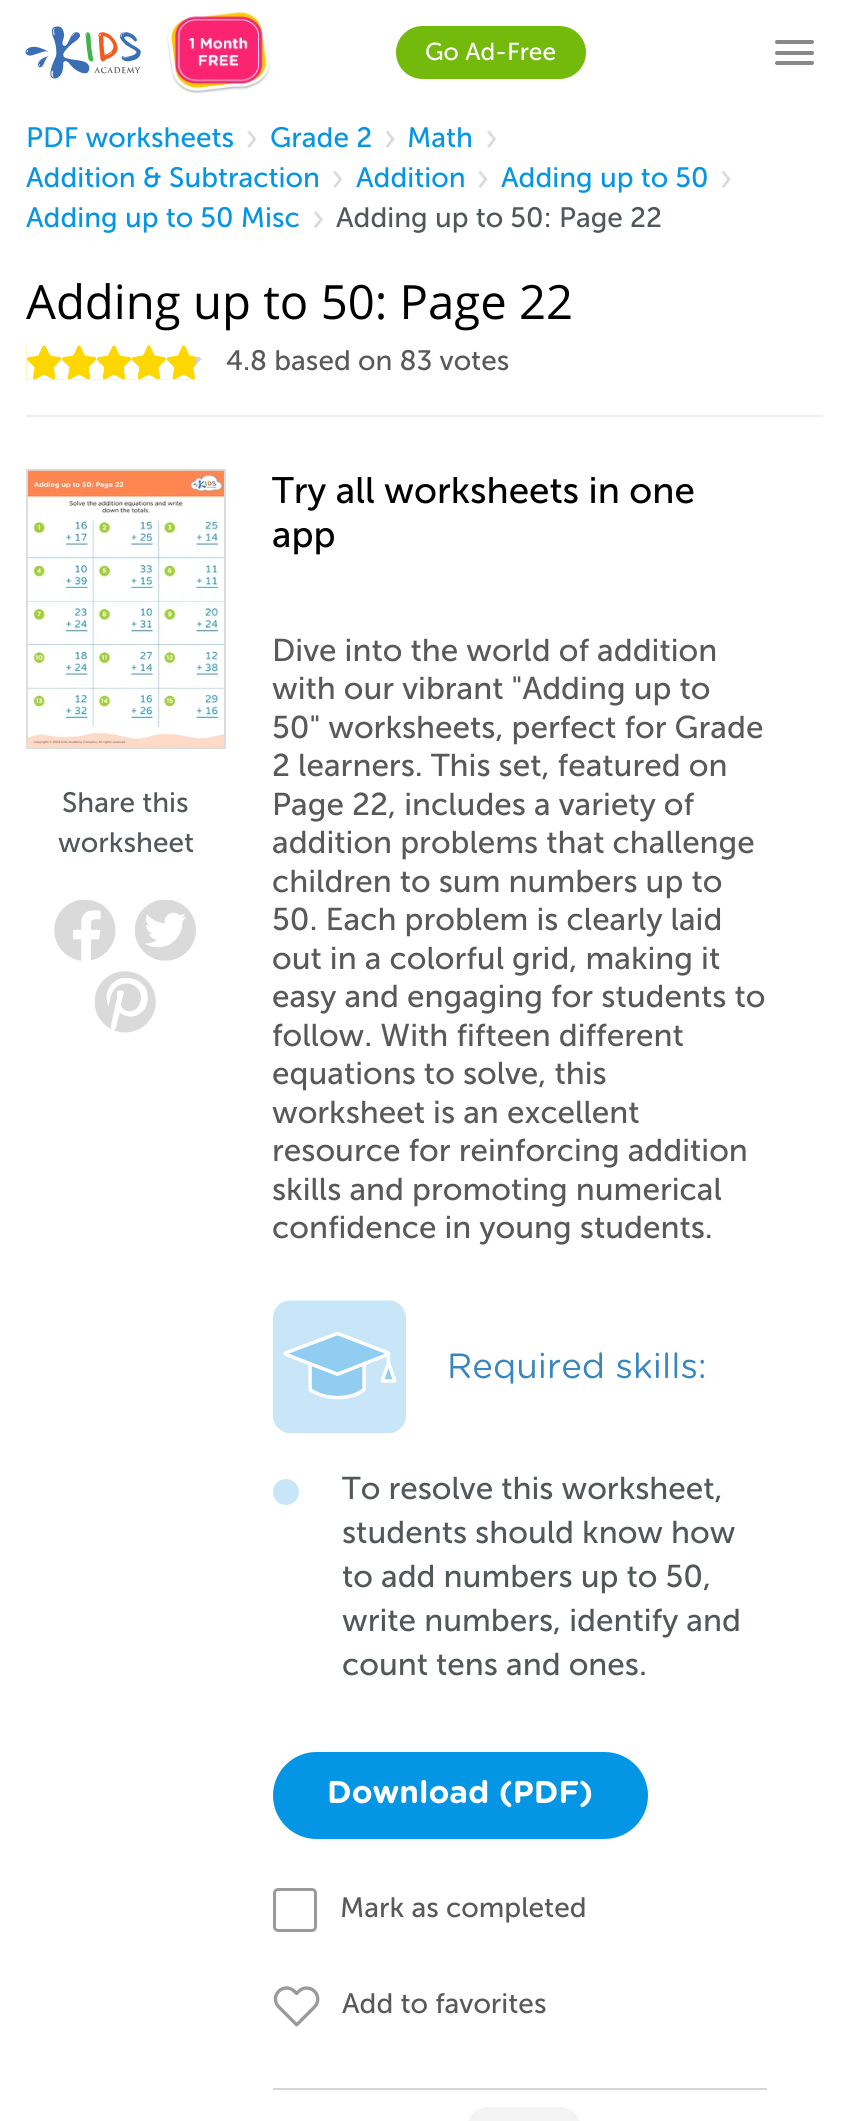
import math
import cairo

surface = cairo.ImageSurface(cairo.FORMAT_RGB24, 848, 2121)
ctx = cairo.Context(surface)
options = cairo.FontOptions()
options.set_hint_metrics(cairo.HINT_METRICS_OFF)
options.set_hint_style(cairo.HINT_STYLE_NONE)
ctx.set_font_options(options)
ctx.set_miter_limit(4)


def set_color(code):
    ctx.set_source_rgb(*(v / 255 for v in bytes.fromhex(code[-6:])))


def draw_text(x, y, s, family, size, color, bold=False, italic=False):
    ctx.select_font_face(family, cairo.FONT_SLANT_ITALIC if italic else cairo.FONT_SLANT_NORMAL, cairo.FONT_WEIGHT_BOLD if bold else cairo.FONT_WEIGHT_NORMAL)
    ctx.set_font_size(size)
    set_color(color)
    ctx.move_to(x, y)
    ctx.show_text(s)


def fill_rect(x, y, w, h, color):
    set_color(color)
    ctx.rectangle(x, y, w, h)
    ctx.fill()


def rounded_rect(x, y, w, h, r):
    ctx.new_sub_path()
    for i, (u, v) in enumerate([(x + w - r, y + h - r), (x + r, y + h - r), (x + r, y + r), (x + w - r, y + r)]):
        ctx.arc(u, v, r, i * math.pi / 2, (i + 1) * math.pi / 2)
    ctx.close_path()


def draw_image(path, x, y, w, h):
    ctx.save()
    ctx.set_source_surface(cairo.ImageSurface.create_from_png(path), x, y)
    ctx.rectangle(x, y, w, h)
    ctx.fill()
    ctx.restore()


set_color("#ffffff")
ctx.paint()
draw_image("assets/img1.png", 167, 11, 103, 83)
draw_image("assets/img2.png", 25, 26, 116, 53)
set_color("#73ba0c")
rounded_rect(397, 27, 188, 51, 25.5)
ctx.fill_preserve()
ctx.stroke()
draw_text(425, 60, "Go Ad-Free", "Museo Sans", 24.5, "#ffffff")
set_color("#888888")
rounded_rect(775, 40, 39, 4, 2)
ctx.fill()
rounded_rect(775, 51, 39, 4, 2)
ctx.fill()
rounded_rect(775, 61, 39, 4, 2)
ctx.fill()
draw_text(26, 147, "PDF worksheets", "Museo Sans", 28, "#0595e5")
draw_image("assets/img3.png", 247, 130, 10, 18)
draw_text(270, 147, "Grade 2", "Museo Sans", 28, "#0595e5")
draw_image("assets/img4.png", 386, 130, 9, 18)
draw_text(407, 147, "Math", "Museo Sans", 28, "#0595e5")
draw_image("assets/img5.png", 487, 130, 9, 18)
draw_text(26, 187, "Addition & Subtraction", "Museo Sans", 28, "#0595e5")
draw_image("assets/img6.png", 333, 170, 9, 18)
draw_text(356, 187, "Addition", "Museo Sans", 28, "#0595e5")
draw_image("assets/img7.png", 478, 170, 10, 18)
draw_text(501, 187, "Adding up to 50", "Museo Sans", 28, "#0595e5")
draw_image("assets/img8.png", 721, 170, 10, 18)
draw_text(26, 227, "Adding up to 50 Misc", "Museo Sans", 28, "#0595e5")
draw_image("assets/img9.png", 314, 211, 9, 18)
draw_text(336, 227, "Adding up to 50: Page 22", "Museo Sans", 28, "#525859")
draw_text(26, 319, "Adding up to 50: Page 22", "Open Sans", 47.25, "#000000")
fill_rect(26, 345, 170, 35, "#ffd700")
fill_rect(196, 356, 5, 24, "#d4d4d4")
draw_image("assets/img10.png", 26, 345, 175, 35)
draw_text(226, 370, "4.8 based on 83 votes", "Museo Sans", 28, "#595959")
fill_rect(26, 415, 797, 2, "#eeeeee")
ctx.rectangle(27, 470, 198, 278)
set_color("#dddddd")
ctx.stroke()
draw_image("assets/img11.png", 28, 470, 196, 278)
draw_text(62, 812, "Share this", "Museo Sans", 28, "#525859")
draw_text(58, 852, "worksheet", "Museo Sans", 28, "#525859")
draw_image("assets/img12.png", 54, 900, 62, 61)
draw_image("assets/img13.png", 135, 900, 61, 61)
draw_image("assets/img14.png", 95, 971, 61, 62)
draw_text(272, 503, "Try all worksheets in one", "Museo Sans", 36.75, "#000000")
draw_text(272, 547, "app", "Museo Sans", 36.75, "#000000")
draw_text(272, 661, "Dive into the world of addition", "Museo Sans", 31.5, "#595959")
draw_text(272, 699, "with our vibrant \"Adding up to", "Museo Sans", 31.5, "#595959")
draw_text(272, 738, "50\" worksheets, perfect for Grade", "Museo Sans", 31.5, "#595959")
draw_text(272, 776, "2 learners. This set, featured on", "Museo Sans", 31.5, "#595959")
draw_text(272, 815, "Page 22, includes a variety of", "Museo Sans", 31.5, "#595959")
draw_text(272, 853, "addition problems that challenge", "Museo Sans", 31.5, "#595959")
draw_text(272, 892, "children to sum numbers up to", "Museo Sans", 31.5, "#595959")
draw_text(272, 930, "50. Each problem is clearly laid", "Museo Sans", 31.5, "#595959")
draw_text(272, 969, "out in a colorful grid, making it", "Museo Sans", 31.5, "#595959")
draw_text(272, 1007, "easy and engaging for students to", "Museo Sans", 31.5, "#595959")
draw_text(272, 1046, "follow. With fifteen different", "Museo Sans", 31.5, "#595959")
draw_text(272, 1084, "equations to solve, this", "Museo Sans", 31.5, "#595959")
draw_text(272, 1123, "worksheet is an excellent", "Museo Sans", 31.5, "#595959")
draw_text(272, 1161, "resource for reinforcing addition", "Museo Sans", 31.5, "#595959")
draw_text(272, 1200, "skills and promoting numerical", "Museo Sans", 31.5, "#595959")
draw_text(272, 1238, "confidence in young students.", "Museo Sans", 31.5, "#595959")
draw_image("assets/img15.png", 273, 1300, 133, 133)
draw_text(447, 1378, "Required skills:", "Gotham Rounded", 35, "#3686bf")
set_color("#c8e6f8")
ctx.new_path()
ctx.arc(286, 1492, 13, 0, 2 * math.pi)
ctx.fill()
draw_text(342, 1499, "To resolve this worksheet,", "Museo Sans", 31.5, "#525859")
draw_text(342, 1543, "students should know how", "Museo Sans", 31.5, "#525859")
draw_text(342, 1587, "to add numbers up to 50,", "Museo Sans", 31.5, "#525859")
draw_text(342, 1631, "write numbers, identify and", "Museo Sans", 31.5, "#525859")
draw_text(342, 1675, "count tens and ones.", "Museo Sans", 31.5, "#525859")
set_color("#0595e5")
rounded_rect(274, 1753, 373, 85, 42.5)
ctx.fill_preserve()
ctx.stroke()
draw_text(327, 1803, "Download (PDF)", "Gotham Rounded", 31.5, "#ffffff", bold=True)
rounded_rect(274.5, 1889.5, 41, 41, 3.5)
set_color("#9b9b9b")
ctx.set_line_width(3)
ctx.stroke()
draw_text(340, 1917, "Mark as completed", "Museo Sans", 28, "#595959")
draw_image("assets/img16.png", 273, 1986, 47, 41)
draw_text(342, 2013, "Add to favorites", "Museo Sans", 28, "#595959")
fill_rect(273, 2088, 494, 2, "#d7d7d7")
set_color("#f4f4f4")
rounded_rect(467, 2107, 114, 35, 21)
ctx.fill()
surface.write_to_png("output.png")
